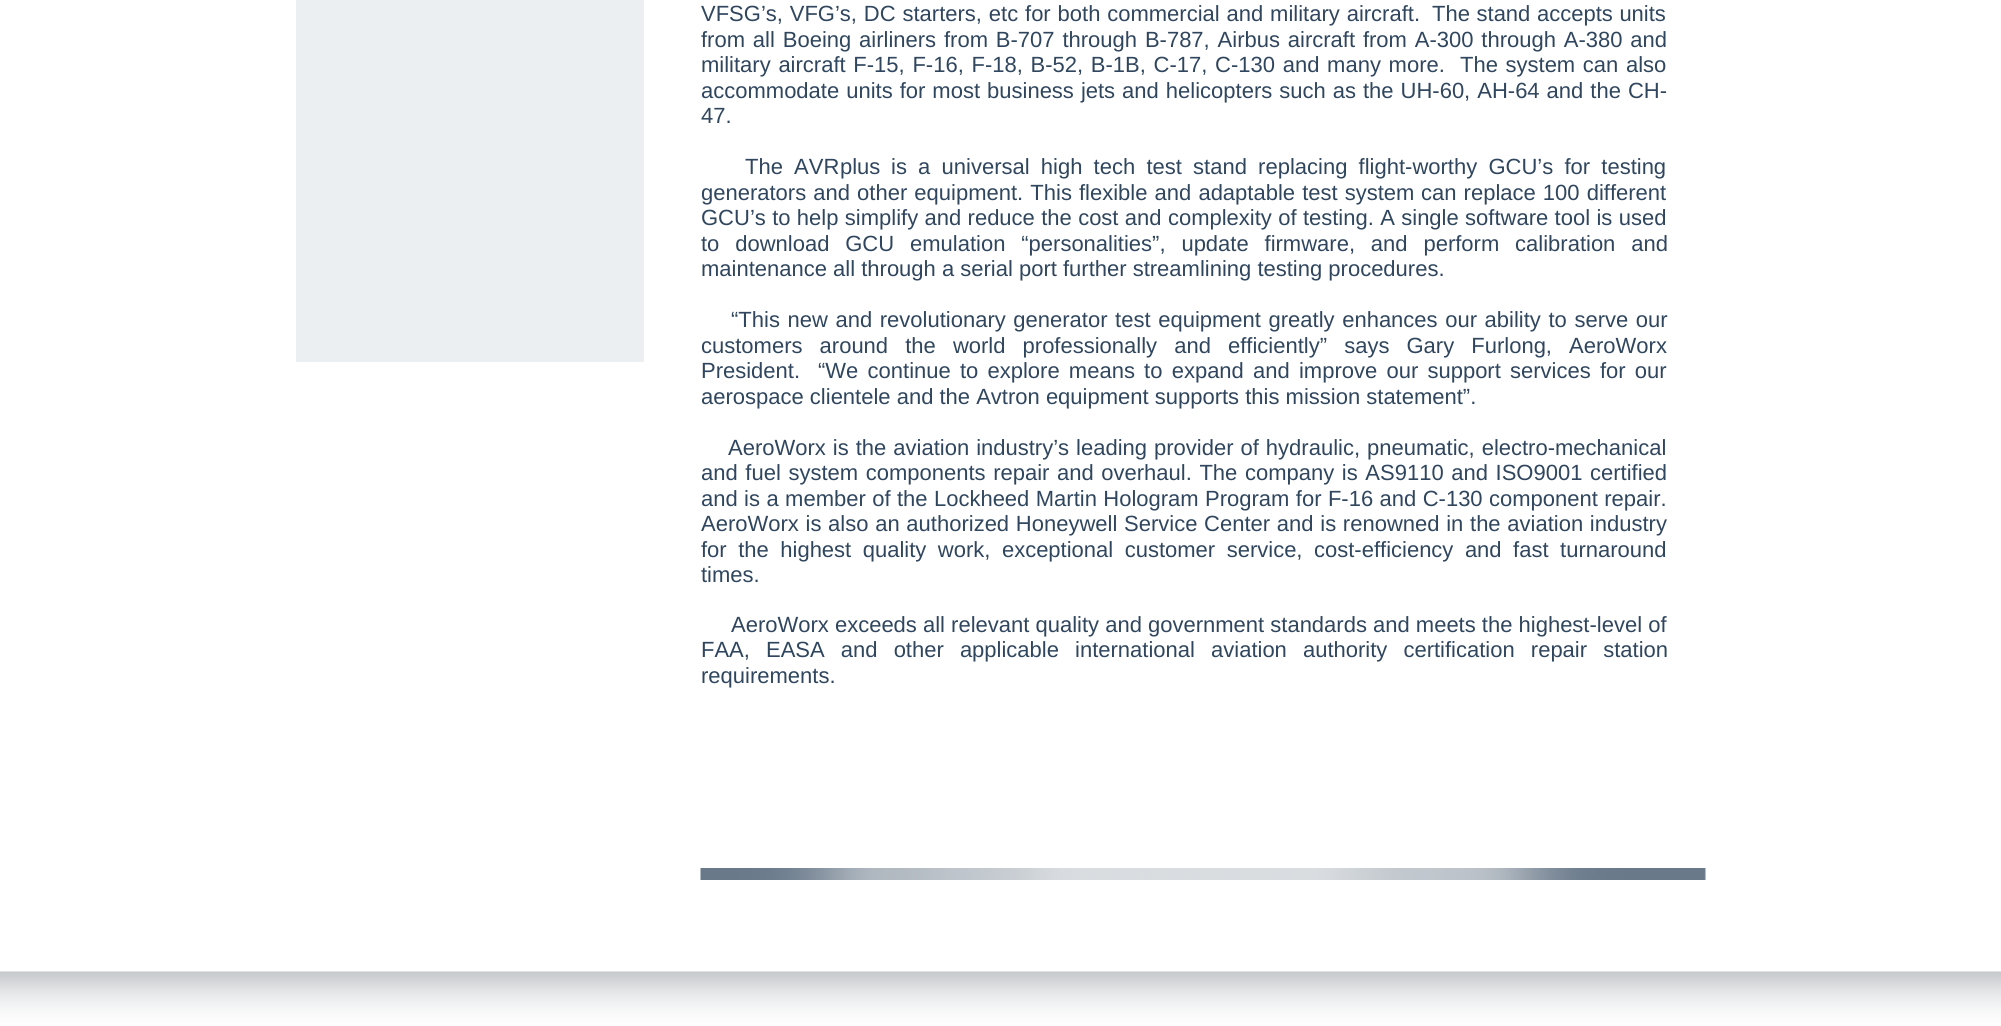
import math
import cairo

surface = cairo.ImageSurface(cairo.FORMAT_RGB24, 2001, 1026)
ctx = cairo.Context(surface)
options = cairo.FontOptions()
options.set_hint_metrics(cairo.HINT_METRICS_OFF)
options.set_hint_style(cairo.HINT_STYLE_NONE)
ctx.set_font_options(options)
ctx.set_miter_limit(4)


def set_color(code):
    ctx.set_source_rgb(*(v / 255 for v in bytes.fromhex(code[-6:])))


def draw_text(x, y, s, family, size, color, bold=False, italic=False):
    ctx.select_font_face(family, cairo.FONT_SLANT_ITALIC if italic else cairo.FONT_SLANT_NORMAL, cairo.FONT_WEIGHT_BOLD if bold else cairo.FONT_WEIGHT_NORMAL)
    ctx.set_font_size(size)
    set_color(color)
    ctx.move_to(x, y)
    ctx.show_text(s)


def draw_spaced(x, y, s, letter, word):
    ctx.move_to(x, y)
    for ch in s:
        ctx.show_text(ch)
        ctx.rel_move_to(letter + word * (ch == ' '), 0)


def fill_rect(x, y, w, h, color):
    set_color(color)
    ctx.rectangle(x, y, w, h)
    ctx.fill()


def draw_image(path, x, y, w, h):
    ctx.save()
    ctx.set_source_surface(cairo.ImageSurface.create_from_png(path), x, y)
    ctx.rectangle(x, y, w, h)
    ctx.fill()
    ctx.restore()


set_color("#ffffff")
ctx.paint()
fill_rect(296, 0, 348, 362, "#eceff2")
draw_image("assets/img1.png", 700, 868, 1006, 12)
ctx.select_font_face("Liberation Sans")
ctx.set_font_size(22)
set_color("#30465e")
draw_spaced(701, 21, "VFSG’s, VFG’s, DC starters, etc for both commercial and military aircraft.", 0, 0.75)
draw_spaced(1432, 21, "The stand accepts units", 0, 0.5)
draw_spaced(701, 47, "from all Boeing airliners from B-707 through B-787, Airbus aircraft from A-300 through A-380 and", 0, 1.75)
draw_spaced(701, 72, "military aircraft F-15, F-16, F-18, B-52, B-1B, C-17, C-130 and many more.", 0, 1.6)
draw_spaced(1460, 72, "The system can also", 0, 1.5)
draw_spaced(701, 98, "accommodate units for most business jets and helicopters such as the UH-60, AH-64 and the CH-", 0, 0.9)
draw_text(701, 123, "47.", "Liberation Sans", 22, "#30465e")
draw_spaced(745, 174, "The AVR", 0, 5.1)
draw_text(840, 174, "plus", "Liberation Sans", 22, "#30465e")
draw_spaced(891, 174, "is a universal high tech test stand replacing flight-worthy GCU’s for testing", 0, 5.1)
draw_spaced(701, 200, "generators and other equipment. This flexible and adaptable test system", 0, 1)
draw_spaced(1421, 200, "can replace 100 different", 0, 1)
draw_spaced(701, 225, "GCU’s to help simplify and reduce the cost and complexity of testing. A single software tool is used", 0, 0.25)
draw_spaced(701, 251, "to download GCU emulation “personalities”, update firmware, and perform calibration and", 0, 9.75)
draw_text(701, 276, "maintenance all through a serial port further streamlining testing procedures.", "Liberation Sans", 22, "#30465e")
draw_spaced(731, 327, "“This new and revolutionary generator test equipment greatly enhances our ability to serve our", 0, 1.5)
draw_spaced(701, 353, "customers around the world professionally and efficiently” says Gary Furlong, AeroWorx", 0, 11)
draw_text(701, 378, "President.", "Liberation Sans", 22, "#30465e")
draw_spaced(818, 378, "“We continue to explore means to expand and improve our support services for our", 0, 3.1)
draw_text(701, 404, "aerospace clientele and the Avtron equipment supports this mission statement”.", "Liberation Sans", 22, "#30465e")
draw_spaced(728, 455, "AeroWorx is the aviation industry’s leading provider of hydraulic, pneumatic, electro-mechanical", 0, 0.9)
draw_spaced(701, 480, "and fuel system components repair and overhaul. The company is AS9110 and ISO9001 certified", 0, 1.5)
draw_spaced(701, 506, "and is a member of the Lockheed Martin Hologram Program for F-16 and C-130 component repair.", 0, 0.3)
draw_spaced(701, 531, "AeroWorx is also an authorized Honeywell Service Center and is renowned in the aviation industry", 0, 0.6)
draw_spaced(701, 557, "for the highest quality work, exceptional customer service, cost-efficiency and fast turnaround", 0, 5.4)
draw_text(701, 582, "times.", "Liberation Sans", 22, "#30465e")
draw_text(731, 632, "AeroWorx exceeds all relevant quality and government standards and meets the highest-level of", "Liberation Sans", 22, "#30465e")
draw_spaced(701, 657, "FAA, EASA and other applicable international aviation authority certification repair station", 0, 10)
draw_text(701, 683, "requirements.", "Liberation Sans", 22, "#30465e")
draw_image("assets/img2.png", 0, 971, 2001, 55)
surface.write_to_png("output.png")
